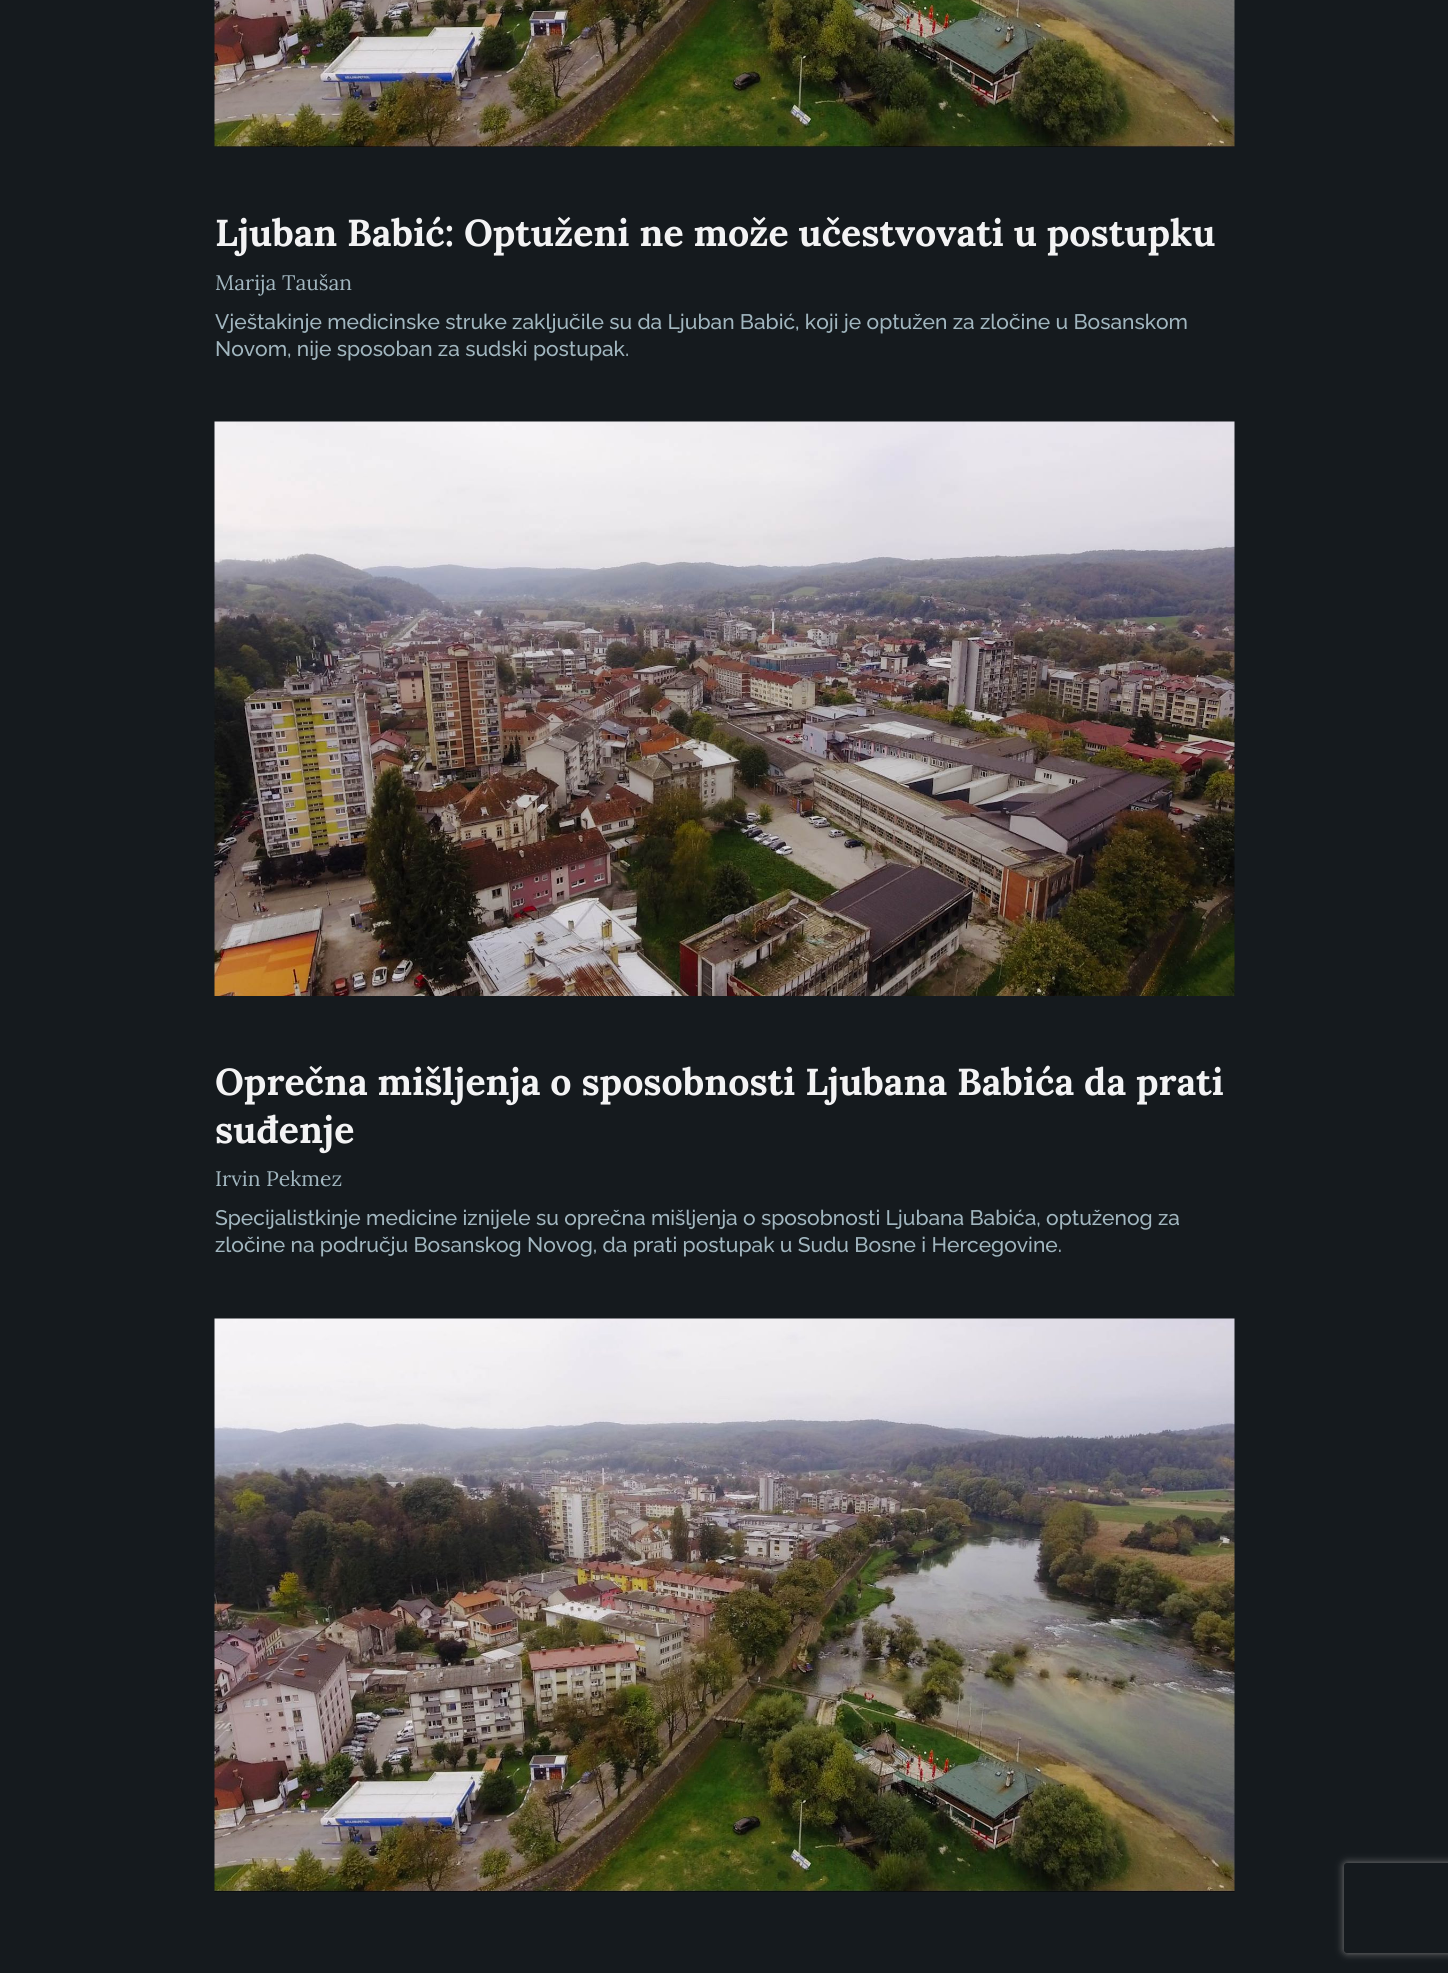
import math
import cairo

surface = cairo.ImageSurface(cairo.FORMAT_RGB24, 1448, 1973)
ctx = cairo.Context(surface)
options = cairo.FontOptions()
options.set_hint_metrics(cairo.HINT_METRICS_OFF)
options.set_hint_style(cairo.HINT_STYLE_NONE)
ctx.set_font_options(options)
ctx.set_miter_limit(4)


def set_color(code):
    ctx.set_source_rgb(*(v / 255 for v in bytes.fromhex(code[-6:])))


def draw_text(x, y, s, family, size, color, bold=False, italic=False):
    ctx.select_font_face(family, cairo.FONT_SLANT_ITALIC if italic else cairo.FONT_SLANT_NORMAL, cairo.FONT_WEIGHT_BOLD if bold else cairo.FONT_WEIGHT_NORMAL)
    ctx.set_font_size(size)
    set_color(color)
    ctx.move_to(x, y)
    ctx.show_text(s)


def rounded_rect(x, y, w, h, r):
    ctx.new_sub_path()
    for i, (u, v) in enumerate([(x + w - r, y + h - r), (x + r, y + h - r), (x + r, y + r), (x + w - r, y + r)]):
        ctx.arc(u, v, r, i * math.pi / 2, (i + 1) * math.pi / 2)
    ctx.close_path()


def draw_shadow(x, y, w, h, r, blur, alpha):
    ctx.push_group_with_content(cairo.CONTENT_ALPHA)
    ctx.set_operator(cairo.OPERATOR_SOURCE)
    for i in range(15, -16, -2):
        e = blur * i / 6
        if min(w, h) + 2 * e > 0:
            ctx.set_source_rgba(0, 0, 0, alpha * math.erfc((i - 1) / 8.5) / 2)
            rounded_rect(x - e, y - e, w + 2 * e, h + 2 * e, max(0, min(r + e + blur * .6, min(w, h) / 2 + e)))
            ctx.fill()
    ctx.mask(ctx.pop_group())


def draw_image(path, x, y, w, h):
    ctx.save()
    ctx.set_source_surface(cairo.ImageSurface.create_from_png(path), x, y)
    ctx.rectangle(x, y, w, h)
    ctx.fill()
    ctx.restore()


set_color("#151a1e")
ctx.paint()
draw_image("assets/img1.png", 214, 0, 1021, 147)
draw_text(215, 246, "Ljuban Babić: Optuženi ne može učestvovati u postupku", "Lora", 37.5, "#f3f3f4", bold=True)
draw_text(215, 290, "Marija Taušan", "Lora", 21, "#a1b6bf")
draw_text(215, 329, "Vještakinje medicinske struke zaključile su da Ljuban Babić, koji je optužen za zločine u Bosanskom", "Raleway Medium", 21, "#a1b6bf")
draw_text(215, 356, "Novom, nije sposoban za sudski postupak.", "Raleway Medium", 21, "#a1b6bf")
draw_image("assets/img2.png", 214, 421, 1021, 575)
draw_text(215, 1095, "Oprečna mišljenja o sposobnosti Ljubana Babića da prati", "Lora", 37.5, "#f3f3f4", bold=True)
draw_text(215, 1143, "suđenje", "Lora", 37.5, "#f3f3f4", bold=True)
draw_text(215, 1186, "Irvin Pekmez", "Lora", 21, "#a1b6bf")
draw_text(215, 1225, "Specijalistkinje medicine iznijele su oprečna mišljenja o sposobnosti Ljubana Babića, optuženog za", "Raleway Medium", 21, "#a1b6bf")
draw_text(215, 1252, "zločine na području Bosanskog Novog, da prati postupak u Sudu Bosne i Hercegovine.", "Raleway Medium", 21, "#a1b6bf")
draw_image("assets/img3.png", 214, 1318, 1021, 574)
ctx.save()
ctx.set_fill_rule(cairo.FILL_RULE_EVEN_ODD)
ctx.new_path()
ctx.move_to(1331, 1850)
ctx.line_to(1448, 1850)
ctx.line_to(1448, 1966)
ctx.line_to(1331, 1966)
ctx.close_path()
ctx.move_to(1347, 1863)
ctx.line_to(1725, 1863)
ctx.curve_to(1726.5, 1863, 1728, 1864.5, 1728, 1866)
ctx.line_to(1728, 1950)
ctx.curve_to(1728, 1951.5, 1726.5, 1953, 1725, 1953)
ctx.line_to(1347, 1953)
ctx.curve_to(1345.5, 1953, 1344, 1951.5, 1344, 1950)
ctx.line_to(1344, 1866)
ctx.curve_to(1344, 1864.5, 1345.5, 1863, 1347, 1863)
ctx.close_path()
ctx.clip()
set_color("#808080")
draw_shadow(1344, 1863, 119, 90, 3, 4, 1)
ctx.restore()
surface.write_to_png("output.png")
